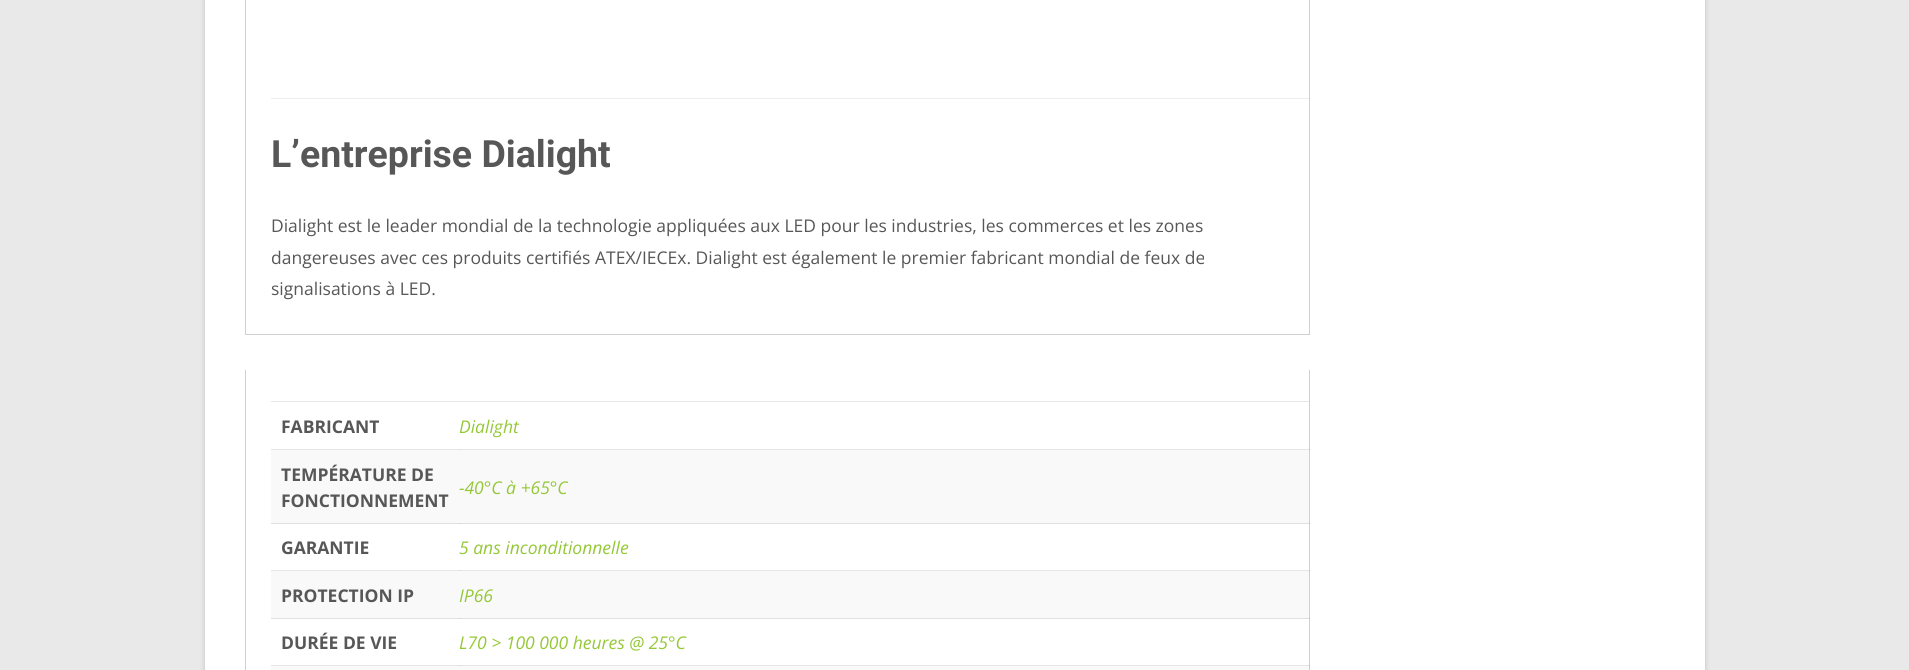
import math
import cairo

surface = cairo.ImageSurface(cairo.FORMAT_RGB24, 1909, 670)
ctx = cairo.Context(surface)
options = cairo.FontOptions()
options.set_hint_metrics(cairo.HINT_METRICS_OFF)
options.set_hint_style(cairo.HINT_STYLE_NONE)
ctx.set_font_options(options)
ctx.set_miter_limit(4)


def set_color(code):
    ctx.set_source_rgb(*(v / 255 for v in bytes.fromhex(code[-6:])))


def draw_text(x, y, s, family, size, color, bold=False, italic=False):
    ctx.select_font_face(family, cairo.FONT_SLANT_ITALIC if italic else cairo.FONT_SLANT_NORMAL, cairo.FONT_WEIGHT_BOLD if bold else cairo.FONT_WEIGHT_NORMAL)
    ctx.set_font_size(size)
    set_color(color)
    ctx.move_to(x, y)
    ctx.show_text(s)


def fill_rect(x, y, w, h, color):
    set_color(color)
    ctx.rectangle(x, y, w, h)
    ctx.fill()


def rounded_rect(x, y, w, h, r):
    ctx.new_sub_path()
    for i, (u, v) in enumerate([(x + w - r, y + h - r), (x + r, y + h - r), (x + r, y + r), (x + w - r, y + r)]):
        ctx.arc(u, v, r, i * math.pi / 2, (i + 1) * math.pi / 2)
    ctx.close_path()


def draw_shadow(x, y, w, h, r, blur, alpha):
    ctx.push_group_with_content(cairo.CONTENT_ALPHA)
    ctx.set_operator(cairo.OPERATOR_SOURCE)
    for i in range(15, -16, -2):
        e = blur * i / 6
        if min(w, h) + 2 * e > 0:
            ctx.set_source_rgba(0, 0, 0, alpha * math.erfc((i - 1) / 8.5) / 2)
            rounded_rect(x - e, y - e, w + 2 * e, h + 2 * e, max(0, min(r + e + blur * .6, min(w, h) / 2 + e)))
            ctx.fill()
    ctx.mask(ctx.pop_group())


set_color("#e9e9e9")
ctx.paint()
set_color("#000000")
draw_shadow(205, -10, 1500, 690, 2.5, 2.5, 0.1)
draw_shadow(205, -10, 1500, 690, 2.5, 2.5, 0.1)
fill_rect(205, 0, 1500, 670, "#ffffff")
fill_rect(271, 449, 1039, 1, "#e6e6e6")
fill_rect(459, 449, 1, 1, "#cfcfcf")
fill_rect(271, 570, 1039, 1, "#e6e6e6")
fill_rect(459, 570, 1, 1, "#cfcfcf")
fill_rect(271, 665, 1039, 1, "#e6e6e6")
fill_rect(459, 665, 1, 1, "#cfcfcf")
fill_rect(1309, 0, 1, 335, "#d3ced2")
fill_rect(245, 334, 1065, 1, "#d3ced2")
fill_rect(245, 0, 1, 335, "#d3ced2")
fill_rect(271, 98, 1038, 1, "#ededed")
draw_text(271, 167, "L’entreprise Dialight", "Roboto", 37.5, "#575757", bold=True)
draw_text(271, 232, "Dialight est le leader mondial de la technologie appliquées aux LED pour les industries, les commerces et les zones", "Open Sans", 17.5, "#575757")
draw_text(271, 264, "dangereuses avec ces produits certifiés ATEX/IECEx. Dialight est également le premier fabricant mondial de feux de", "Open Sans", 17.5, "#575757")
draw_text(271, 295, "signalisations à LED.", "Open Sans", 17.5, "#575757")
fill_rect(1309, 370, 1, 300, "#d3ced2")
fill_rect(1309, 449, 1, 1, "#beb9bd")
fill_rect(1309, 523, 1, 1, "#beb9bd")
fill_rect(1309, 570, 1, 1, "#beb9bd")
fill_rect(1309, 618, 1, 1, "#beb9bd")
fill_rect(1309, 665, 1, 1, "#beb9bd")
fill_rect(245, 370, 1, 300, "#d3ced2")
fill_rect(271, 401, 1038, 1, "#e6e6e6")
draw_text(281, 433, "FABRICANT", "Open Sans", 17.5, "#575757", bold=True)
draw_text(459, 433, "Dialight", "Open Sans", 17.5, "#95c837", italic=True)
fill_rect(271, 450, 1038, 73, "#f9f9f9")
fill_rect(271, 523, 1038, 1, "#e0e0e0")
draw_text(281, 481, "TEMPÉRATURE DE", "Open Sans", 17.5, "#575757", bold=True)
draw_text(281, 507, "FONCTIONNEMENT", "Open Sans", 17.5, "#575757", bold=True)
fill_rect(459, 523, 1, 1, "#cacaca")
draw_text(459, 494, "-40°C à +65°C", "Open Sans", 17.5, "#95c837", italic=True)
draw_text(281, 554, "GARANTIE", "Open Sans", 17.5, "#575757", bold=True)
draw_text(459, 554, "5 ans inconditionnelle", "Open Sans", 17.5, "#95c837", italic=True)
fill_rect(271, 571, 1038, 47, "#f9f9f9")
fill_rect(271, 618, 1038, 1, "#e0e0e0")
draw_text(281, 602, "PROTECTION IP", "Open Sans", 17.5, "#575757", bold=True)
fill_rect(459, 618, 1, 1, "#cacaca")
draw_text(459, 602, "IP66", "Open Sans", 17.5, "#95c837", italic=True)
draw_text(281, 649, "DURÉE DE VIE", "Open Sans", 17.5, "#575757", bold=True)
draw_text(459, 649, "L70 > 100 000 heures @ 25°C", "Open Sans", 17.5, "#95c837", italic=True)
fill_rect(271, 666, 1038, 4, "#f9f9f9")
surface.write_to_png("output.png")
